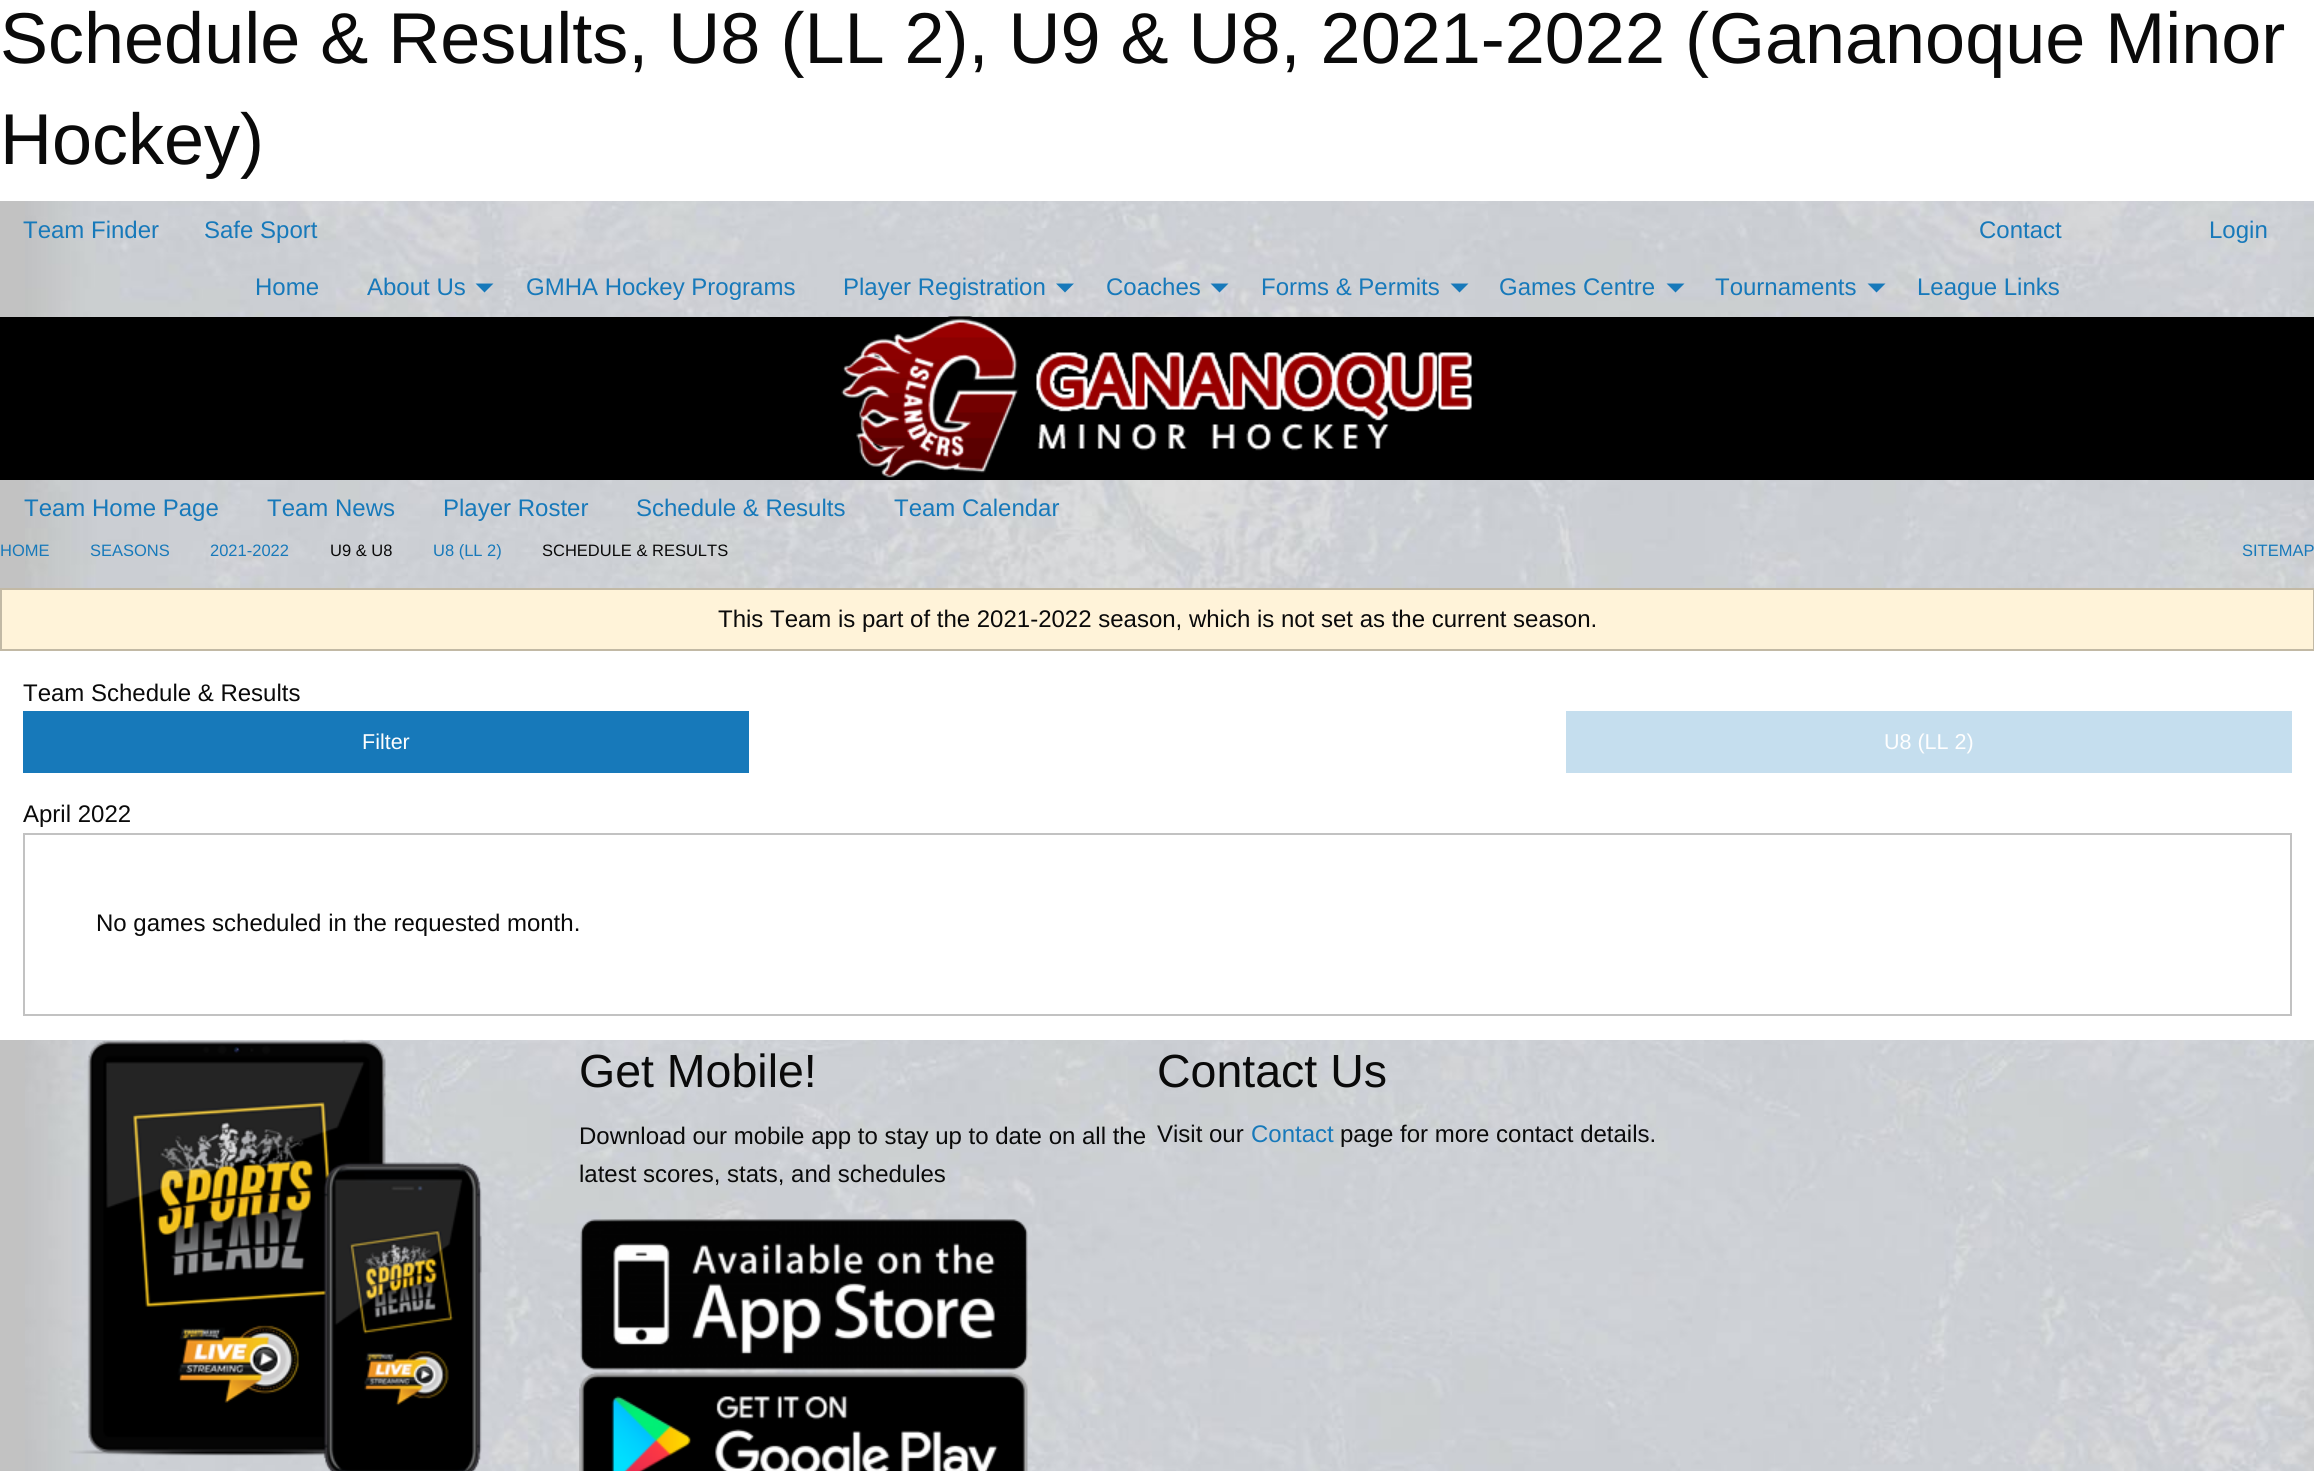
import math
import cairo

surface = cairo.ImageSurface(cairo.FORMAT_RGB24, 2314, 1471)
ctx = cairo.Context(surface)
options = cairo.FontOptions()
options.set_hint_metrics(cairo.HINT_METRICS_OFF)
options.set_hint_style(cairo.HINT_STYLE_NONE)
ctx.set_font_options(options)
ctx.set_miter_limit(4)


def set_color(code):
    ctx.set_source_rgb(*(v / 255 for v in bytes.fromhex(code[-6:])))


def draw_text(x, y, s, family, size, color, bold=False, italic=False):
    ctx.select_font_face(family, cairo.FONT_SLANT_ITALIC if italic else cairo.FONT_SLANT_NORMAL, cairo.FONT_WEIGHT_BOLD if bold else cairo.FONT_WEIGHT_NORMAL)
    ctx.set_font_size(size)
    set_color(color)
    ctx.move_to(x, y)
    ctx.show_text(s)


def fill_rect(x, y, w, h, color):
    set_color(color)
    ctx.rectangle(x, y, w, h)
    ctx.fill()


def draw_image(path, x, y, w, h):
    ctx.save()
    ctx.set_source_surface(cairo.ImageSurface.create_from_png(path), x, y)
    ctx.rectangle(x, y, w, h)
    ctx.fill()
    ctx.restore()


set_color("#ffffff")
ctx.paint()
draw_text(0, 63, "Schedule & Results, U8 (LL 2), U9 & U8, 2021-2022 (Gananoque Minor", "Liberation Sans", 72, "#0a0a0a")
draw_text(0, 164, "Hockey)", "Liberation Sans", 72, "#0a0a0a")
fill_rect(0, 201, 25, 1270, "#c2c2c2")
draw_image("assets/img1.png", 25, 201, 2289, 1270)
draw_text(23, 238, "Team Finder", "Liberation Sans", 24, "#1779ba")
draw_text(204, 238, "Safe Sport", "Liberation Sans", 24, "#1779ba")
draw_text(1979, 238, "Contact", "Liberation Sans", 24, "#1779ba")
draw_text(2209, 238, "Login", "Liberation Sans", 24, "#1779ba")
draw_text(255, 295, "Home", "Liberation Sans", 24, "#1779ba")
draw_text(367, 295, "About Us", "Liberation Sans", 24, "#1779ba")
ctx.new_path()
ctx.move_to(475.5, 283.5)
ctx.line_to(493.5, 283.5)
ctx.line_to(484.5, 292.5)
ctx.close_path()
ctx.fill()
draw_text(526, 295, "GMHA Hockey Programs", "Liberation Sans", 24, "#1779ba")
draw_text(843, 295, "Player Registration", "Liberation Sans", 24, "#1779ba")
ctx.new_path()
ctx.move_to(1056, 283.5)
ctx.line_to(1074, 283.5)
ctx.line_to(1065, 292.5)
ctx.close_path()
ctx.fill()
draw_text(1106, 295, "Coaches", "Liberation Sans", 24, "#1779ba")
ctx.new_path()
ctx.move_to(1210.5, 283.5)
ctx.line_to(1228.5, 283.5)
ctx.line_to(1219.5, 292.5)
ctx.close_path()
ctx.fill()
draw_text(1261, 295, "Forms & Permits", "Liberation Sans", 24, "#1779ba")
ctx.new_path()
ctx.move_to(1450.5, 283.5)
ctx.line_to(1468.5, 283.5)
ctx.line_to(1459.5, 292.5)
ctx.close_path()
ctx.fill()
draw_text(1499, 295, "Games Centre", "Liberation Sans", 24, "#1779ba")
ctx.new_path()
ctx.move_to(1666.5, 283.5)
ctx.line_to(1684.5, 283.5)
ctx.line_to(1675.5, 292.5)
ctx.close_path()
ctx.fill()
draw_text(1715, 295, "Tournaments", "Liberation Sans", 24, "#1779ba")
ctx.new_path()
ctx.move_to(1867.5, 283.5)
ctx.line_to(1885.5, 283.5)
ctx.line_to(1876.5, 292.5)
ctx.close_path()
ctx.fill()
draw_text(1917, 295, "League Links", "Liberation Sans", 24, "#1779ba")
fill_rect(0, 317, 2314, 163, "#000000")
draw_image("assets/img2.png", 841, 316, 631, 162)
draw_text(24, 516, "Team Home Page", "Liberation Sans", 24, "#1779ba")
draw_text(267, 516, "Team News", "Liberation Sans", 24, "#1779ba")
draw_text(443, 516, "Player Roster", "Liberation Sans", 24, "#1779ba")
draw_text(636, 516, "Schedule & Results", "Liberation Sans", 24, "#1779ba")
draw_text(894, 516, "Team Calendar", "Liberation Sans", 24, "#1779ba")
draw_text(0, 556, "HOME", "Liberation Sans", 16.5, "#1779ba")
draw_text(90, 556, "SEASONS", "Liberation Sans", 16.5, "#1779ba")
draw_text(210, 556, "2021-2022", "Liberation Sans", 16.5, "#1779ba")
draw_text(330, 556, "U9 & U8", "Liberation Sans", 16.5, "#0a0a0a")
draw_text(433, 556, "U8 (LL 2)", "Liberation Sans", 16.5, "#1779ba")
draw_text(542, 556, "SCHEDULE & RESULTS", "Liberation Sans", 16.5, "#0a0a0a")
draw_text(2242, 556, "SITEMAP", "Liberation Sans", 16.5, "#1779ba")
fill_rect(0, 651, 2314, 389, "#ffffff")
set_color("#fff3d9")
ctx.rectangle(1, 589, 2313, 61)
ctx.fill_preserve()
set_color("#c2b9a5")
ctx.stroke()
draw_text(718, 627, "This Team is part of the 2021-2022 season, which is not set as the current season.", "Liberation Sans", 24, "#0a0a0a")
draw_text(23, 701, "Team Schedule & Results", "Liberation Sans", 24, "#0a0a0a")
fill_rect(23, 711, 726, 62, "#1779ba")
draw_text(362, 749, "Filter", "Liberation Sans", 21.5, "#fefefe")
fill_rect(1566, 711, 726, 62, "#c5deee")
draw_text(1884, 749, "U8 (LL 2)", "Liberation Sans", 21.5, "#fefefe")
draw_text(23, 822, "April 2022", "Liberation Sans", 24, "#0a0a0a")
ctx.rectangle(24, 834, 2267, 181)
set_color("#c2c2c2")
ctx.stroke()
draw_text(96, 931, "No games scheduled in the requested month.", "Liberation Sans", 24, "#0a0a0a")
draw_image("assets/img3.png", 69, 1039, 413, 432)
draw_text(579, 1087, "Get Mobile!", "Liberation Sans", 46.5, "#0a0a0a")
draw_text(579, 1144, "Download our mobile app to stay up to date on all the", "Liberation Sans", 24, "#0a0a0a")
draw_text(579, 1182, "latest scores, stats, and schedules", "Liberation Sans", 24, "#0a0a0a")
draw_image("assets/img4.png", 580, 1219, 448, 151)
draw_image("assets/img5.png", 579, 1372, 449, 99)
draw_text(1157, 1087, "Contact Us", "Liberation Sans", 46.5, "#0a0a0a")
draw_text(1157, 1142, "Visit our", "Liberation Sans", 24, "#0a0a0a")
draw_text(1251, 1142, "Contact", "Liberation Sans", 24, "#1779ba")
draw_text(1340, 1142, "page for more contact details.", "Liberation Sans", 24, "#0a0a0a")
surface.write_to_png("output.png")
